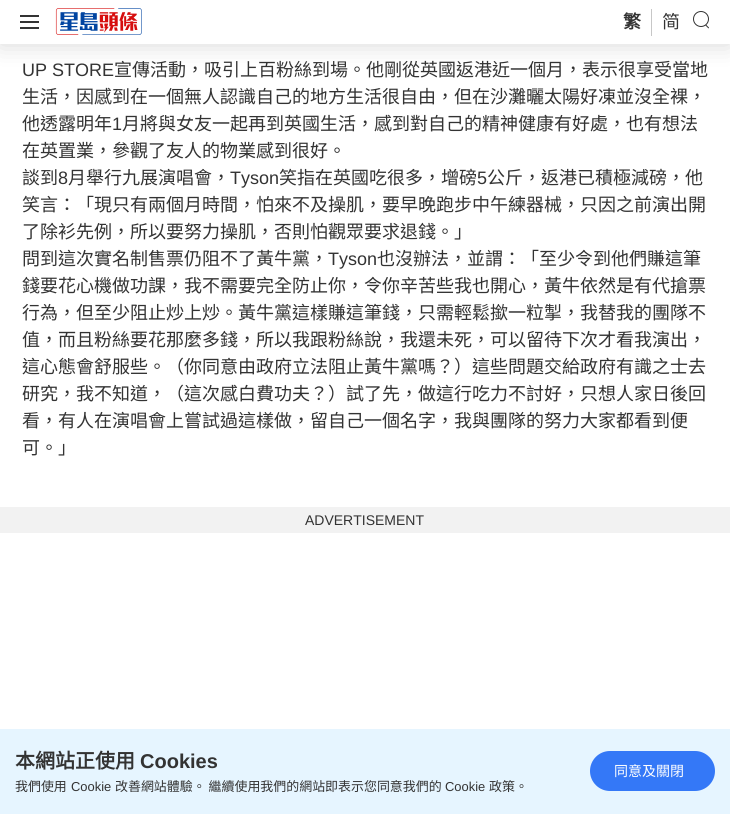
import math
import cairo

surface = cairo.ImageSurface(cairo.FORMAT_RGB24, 730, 814)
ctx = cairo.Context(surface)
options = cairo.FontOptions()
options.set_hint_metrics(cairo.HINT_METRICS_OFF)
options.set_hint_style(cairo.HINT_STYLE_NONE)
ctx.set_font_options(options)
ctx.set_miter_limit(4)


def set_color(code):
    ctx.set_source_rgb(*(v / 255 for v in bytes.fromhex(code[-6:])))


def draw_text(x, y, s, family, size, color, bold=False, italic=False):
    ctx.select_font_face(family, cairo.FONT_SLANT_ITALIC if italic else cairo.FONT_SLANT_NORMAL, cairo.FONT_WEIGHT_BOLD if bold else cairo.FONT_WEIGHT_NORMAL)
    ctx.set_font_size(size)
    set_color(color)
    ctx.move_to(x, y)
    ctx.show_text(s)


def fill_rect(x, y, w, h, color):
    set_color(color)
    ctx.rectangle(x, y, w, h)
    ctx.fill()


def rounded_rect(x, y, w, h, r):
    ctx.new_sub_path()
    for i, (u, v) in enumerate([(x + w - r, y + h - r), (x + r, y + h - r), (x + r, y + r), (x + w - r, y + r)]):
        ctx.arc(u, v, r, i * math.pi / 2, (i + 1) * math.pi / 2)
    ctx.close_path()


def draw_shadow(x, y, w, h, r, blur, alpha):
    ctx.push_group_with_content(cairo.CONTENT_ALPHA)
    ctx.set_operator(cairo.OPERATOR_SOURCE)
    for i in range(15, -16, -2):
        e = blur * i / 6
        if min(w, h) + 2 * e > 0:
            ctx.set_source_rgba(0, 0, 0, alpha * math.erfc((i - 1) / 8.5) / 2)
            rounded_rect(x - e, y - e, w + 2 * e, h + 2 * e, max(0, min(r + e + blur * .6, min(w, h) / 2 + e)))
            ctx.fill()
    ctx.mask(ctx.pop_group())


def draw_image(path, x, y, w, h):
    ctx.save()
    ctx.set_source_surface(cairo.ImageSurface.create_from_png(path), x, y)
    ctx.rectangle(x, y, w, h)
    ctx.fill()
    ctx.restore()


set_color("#ffffff")
ctx.paint()
set_color("#000000")
draw_shadow(0, 1, 730, 44, 0, 12, 0.15)
fill_rect(0, 0, 730, 44, "#ffffff")
fill_rect(20, 15, 19, 2, "#333333")
fill_rect(20, 21, 19, 2, "#333333")
fill_rect(20, 27, 19, 2, "#333333")
draw_image("assets/img1.png", 55, 8, 87, 27)
fill_rect(651, 9, 1, 27, "#c7c7c7")
draw_text(623, 28, "繁", "Noto Sans CJK HK", 18, "#333333", bold=True)
draw_text(662, 28, "简", "Noto Sans CJK HK", 18, "#333333")
draw_image("assets/img2.png", 693, 11, 16, 18)
draw_text(22, 76, "UP STORE", "Liberation Sans", 18, "#333333")
draw_text(114, 76, "宣傳活動，吸引上百粉絲到場。他剛從英國返港近一個月，表示很享受當地", "Noto Sans CJK HK", 18, "#333333")
draw_text(22, 103, "生活，因感到在一個無人認識自己的地方生活很自由，但在沙灘曬太陽好凍並沒全裸，", "Noto Sans CJK HK", 18, "#333333")
draw_text(22, 130, "他透露明年", "Noto Sans CJK HK", 18, "#333333")
draw_text(112, 130, "1", "Liberation Sans", 18, "#333333")
draw_text(122, 130, "月將與女友一起再到英國生活，感到對自己的精神健康有好處，也有想法", "Noto Sans CJK HK", 18, "#333333")
draw_text(22, 157, "在英置業，參觀了友人的物業感到很好。", "Noto Sans CJK HK", 18, "#333333")
draw_text(22, 184, "談到", "Noto Sans CJK HK", 18, "#333333")
draw_text(58, 184, "8", "Liberation Sans", 18, "#333333")
draw_text(68, 184, "月舉行九展演唱會，", "Noto Sans CJK HK", 18, "#333333")
draw_text(230, 184, "Tyson", "Liberation Sans", 18, "#333333")
draw_text(279, 184, "笑指在英國吃很多，增磅", "Noto Sans CJK HK", 18, "#333333")
draw_text(477, 184, "5", "Liberation Sans", 18, "#333333")
draw_text(487, 184, "公斤，返港已積極減磅，他", "Noto Sans CJK HK", 18, "#333333")
draw_text(22, 211, "笑言：「現只有兩個月時間，怕來不及操肌，要早晚跑步中午練器械，只因之前演出開", "Noto Sans CJK HK", 18, "#333333")
draw_text(22, 238, "了除衫先例，所以要努力操肌，否則怕觀眾要求退錢。」", "Noto Sans CJK HK", 18, "#333333")
draw_text(22, 265, "問到這次實名制售票仍阻不了黃牛黨，", "Noto Sans CJK HK", 18, "#333333")
draw_text(328, 265, "Tyson", "Liberation Sans", 18, "#333333")
draw_text(377, 265, "也沒辦法，並謂：「至少令到他們賺這筆", "Noto Sans CJK HK", 18, "#333333")
draw_text(22, 292, "錢要花心機做功課，我不需要完全防止你，令你辛苦些我也開心，黃牛依然是有代搶票", "Noto Sans CJK HK", 18, "#333333")
draw_text(22, 319, "行為，但至少阻止炒上炒。黃牛黨這樣賺這筆錢，只需輕鬆撳一粒掣，我替我的團隊不", "Noto Sans CJK HK", 18, "#333333")
draw_text(22, 346, "值，而且粉絲要花那麼多錢，所以我跟粉絲說，我還未死，可以留待下次才看我演出，", "Noto Sans CJK HK", 18, "#333333")
draw_text(22, 373, "這心態會舒服些。（你同意由政府立法阻止黃牛黨嗎？）這些問題交給政府有識之士去", "Noto Sans CJK HK", 18, "#333333")
draw_text(22, 400, "研究，我不知道，（這次感白費功夫？）試了先，做這行吃力不討好，只想人家日後回", "Noto Sans CJK HK", 18, "#333333")
draw_text(22, 427, "看，有人在演唱會上嘗試過這樣做，留自己一個名字，我與團隊的努力大家都看到便", "Noto Sans CJK HK", 18, "#333333")
draw_text(22, 454, "可。」", "Noto Sans CJK HK", 18, "#333333")
fill_rect(0, 507, 730, 26, "#f2f2f2")
draw_text(305, 525, "ADVERTISEMENT", "Liberation Sans", 14, "#333333")
fill_rect(0, 729, 730, 85, "#e6f5ff")
draw_text(15, 768, "本網站正使用", "Noto Sans CJK HK", 20, "#333333", bold=True)
draw_text(140, 768, "Cookies", "Liberation Sans", 20, "#333333", bold=True)
draw_text(15, 791, "我們使用", "Noto Sans CJK HK", 12.95, "#333333")
draw_text(71, 791, "Cookie", "Liberation Sans", 12.95, "#333333")
draw_text(115, 791, "改善網站體驗。 繼續使用我們的網站即表示您同意我們的", "Noto Sans CJK HK", 12.95, "#333333")
draw_text(445, 791, "Cookie", "Liberation Sans", 12.95, "#333333")
draw_text(489, 791, "政策。", "Noto Sans CJK HK", 12.95, "#333333")
set_color("#3478f7")
rounded_rect(590, 751, 125, 40, 20)
ctx.fill()
draw_text(614, 776, "同意及關閉", "Noto Sans CJK HK", 14, "#ffffff")
surface.write_to_png("output.png")
